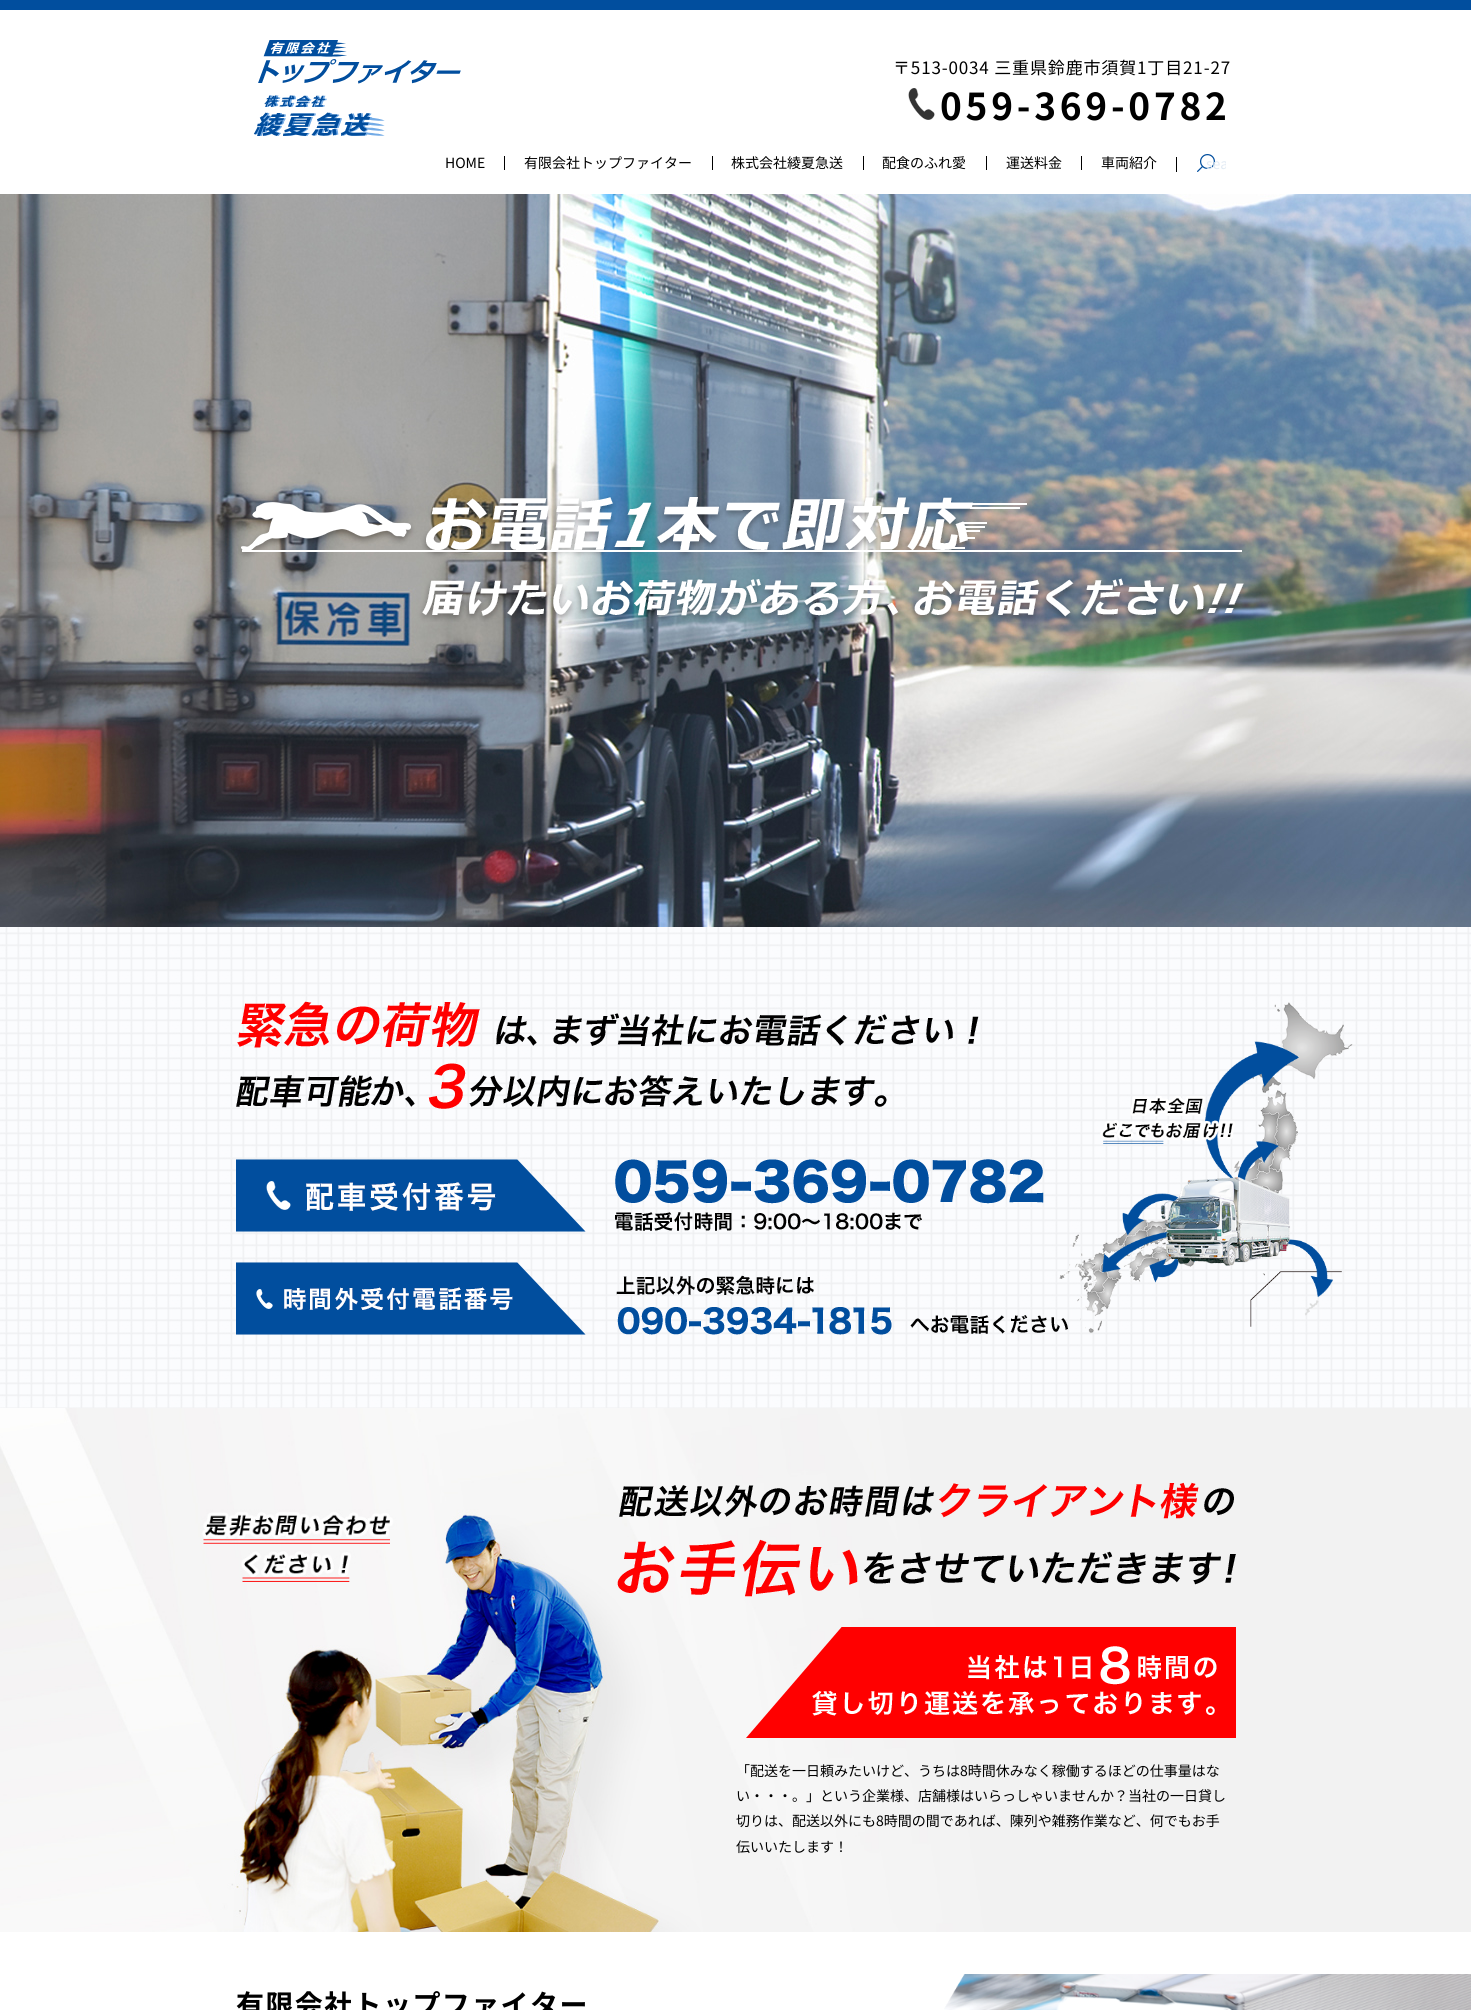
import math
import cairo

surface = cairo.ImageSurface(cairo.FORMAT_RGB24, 1471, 2010)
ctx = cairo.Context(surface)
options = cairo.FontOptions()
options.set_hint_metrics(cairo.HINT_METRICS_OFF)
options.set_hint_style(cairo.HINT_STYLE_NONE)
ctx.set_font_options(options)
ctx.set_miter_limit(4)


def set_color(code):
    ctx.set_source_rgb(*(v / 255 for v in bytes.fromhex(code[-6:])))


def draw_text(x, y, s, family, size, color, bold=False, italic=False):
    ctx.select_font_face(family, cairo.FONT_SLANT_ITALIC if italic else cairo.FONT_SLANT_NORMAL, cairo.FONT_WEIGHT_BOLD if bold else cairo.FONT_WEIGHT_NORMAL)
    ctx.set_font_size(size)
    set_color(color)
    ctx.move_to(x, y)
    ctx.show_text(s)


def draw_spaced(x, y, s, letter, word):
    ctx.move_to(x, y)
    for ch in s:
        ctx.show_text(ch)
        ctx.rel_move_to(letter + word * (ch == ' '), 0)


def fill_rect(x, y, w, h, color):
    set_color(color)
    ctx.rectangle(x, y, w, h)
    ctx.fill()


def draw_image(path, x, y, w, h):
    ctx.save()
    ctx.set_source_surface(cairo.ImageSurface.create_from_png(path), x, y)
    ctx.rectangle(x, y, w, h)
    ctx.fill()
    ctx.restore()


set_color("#ffffff")
ctx.paint()
fill_rect(0, 0, 1471, 10, "#014e9e")
draw_image("assets/img1.png", 258, 40, 203, 44)
draw_image("assets/img2.png", 253, 95, 132, 41)
ctx.select_font_face("Noto Sans JP")
ctx.set_font_size(17)
set_color("#000000")
draw_spaced(893, 74, "〒513-0034 三重県鈴鹿市須賀1丁目21-27", 0.85, 0)
draw_image("assets/img3.png", 908, 88, 27, 32)
ctx.select_font_face("Noto Sans JP", cairo.FONT_SLANT_NORMAL, cairo.FONT_WEIGHT_BOLD)
ctx.set_font_size(37)
draw_spaced(940, 120, "059-369-0782", 3.75, 0)
draw_text(445, 168, "HOME", "Noto Sans JP", 14, "#000000")
fill_rect(504, 156, 1, 14, "#000000")
draw_text(524, 168, "有限会社トップファイター", "Noto Sans JP", 14, "#000000")
fill_rect(712, 156, 1, 14, "#000000")
draw_text(731, 168, "株式会社綾夏急送", "Noto Sans JP", 14, "#000000")
fill_rect(863, 156, 1, 14, "#000000")
draw_text(882, 168, "配食のふれ愛", "Noto Sans JP", 14, "#000000")
fill_rect(986, 156, 1, 14, "#000000")
draw_text(1006, 168, "運送料金", "Noto Sans JP", 14, "#000000")
fill_rect(1081, 156, 1, 14, "#000000")
draw_text(1101, 168, "車両紹介", "Noto Sans JP", 14, "#000000")
draw_image("assets/img4.png", 1197, 154, 18, 18)
fill_rect(1176, 157, 1, 15, "#000000")
ctx.save()
ctx.rectangle(1186, 149, 40, 28)
ctx.clip()
draw_text(1206, 169, "sea", "Noto Sans JP", 14, "#e2ebf4")
ctx.restore()
draw_image("assets/img5.png", 0, 194, 1471, 733)
draw_image("assets/img6.png", 238, 496, 1008, 126)
draw_image("assets/img7.png", 0, 927, 1471, 481)
draw_image("assets/img8.png", 236, 1001, 743, 108)
draw_image("assets/img9.png", 236, 1159, 808, 73)
draw_image("assets/img10.png", 236, 1262, 832, 73)
draw_image("assets/img11.png", 0, 1408, 1471, 524)
draw_image("assets/img12.png", 617, 1482, 619, 115)
draw_image("assets/img13.png", 746, 1627, 490, 111)
draw_text(736, 1776, "「配送を一日頼みたいけど、うちは8時間休みなく稼働するほどの仕事量はな", "Noto Sans JP", 14, "#000000")
draw_text(736, 1801, "い・・・。」という企業様、店舗様はいらっしゃいませんか？当社の一日貸し", "Noto Sans JP", 14, "#000000")
draw_text(736, 1826, "切りは、配送以外にも8時間の間であれば、陳列や雑務作業など、何でもお手", "Noto Sans JP", 14, "#000000")
draw_text(736, 1852, "伝いいたします！", "Noto Sans JP", 14, "#000000")
draw_image("assets/img14.png", 944, 1974, 527, 36)
ctx.select_font_face("Noto Sans JP", cairo.FONT_SLANT_NORMAL, cairo.FONT_WEIGHT_BOLD)
ctx.set_font_size(28)
draw_spaced(236, 2015, "有限会社トップファイター", 1.4, 0)
surface.write_to_png("output.png")
